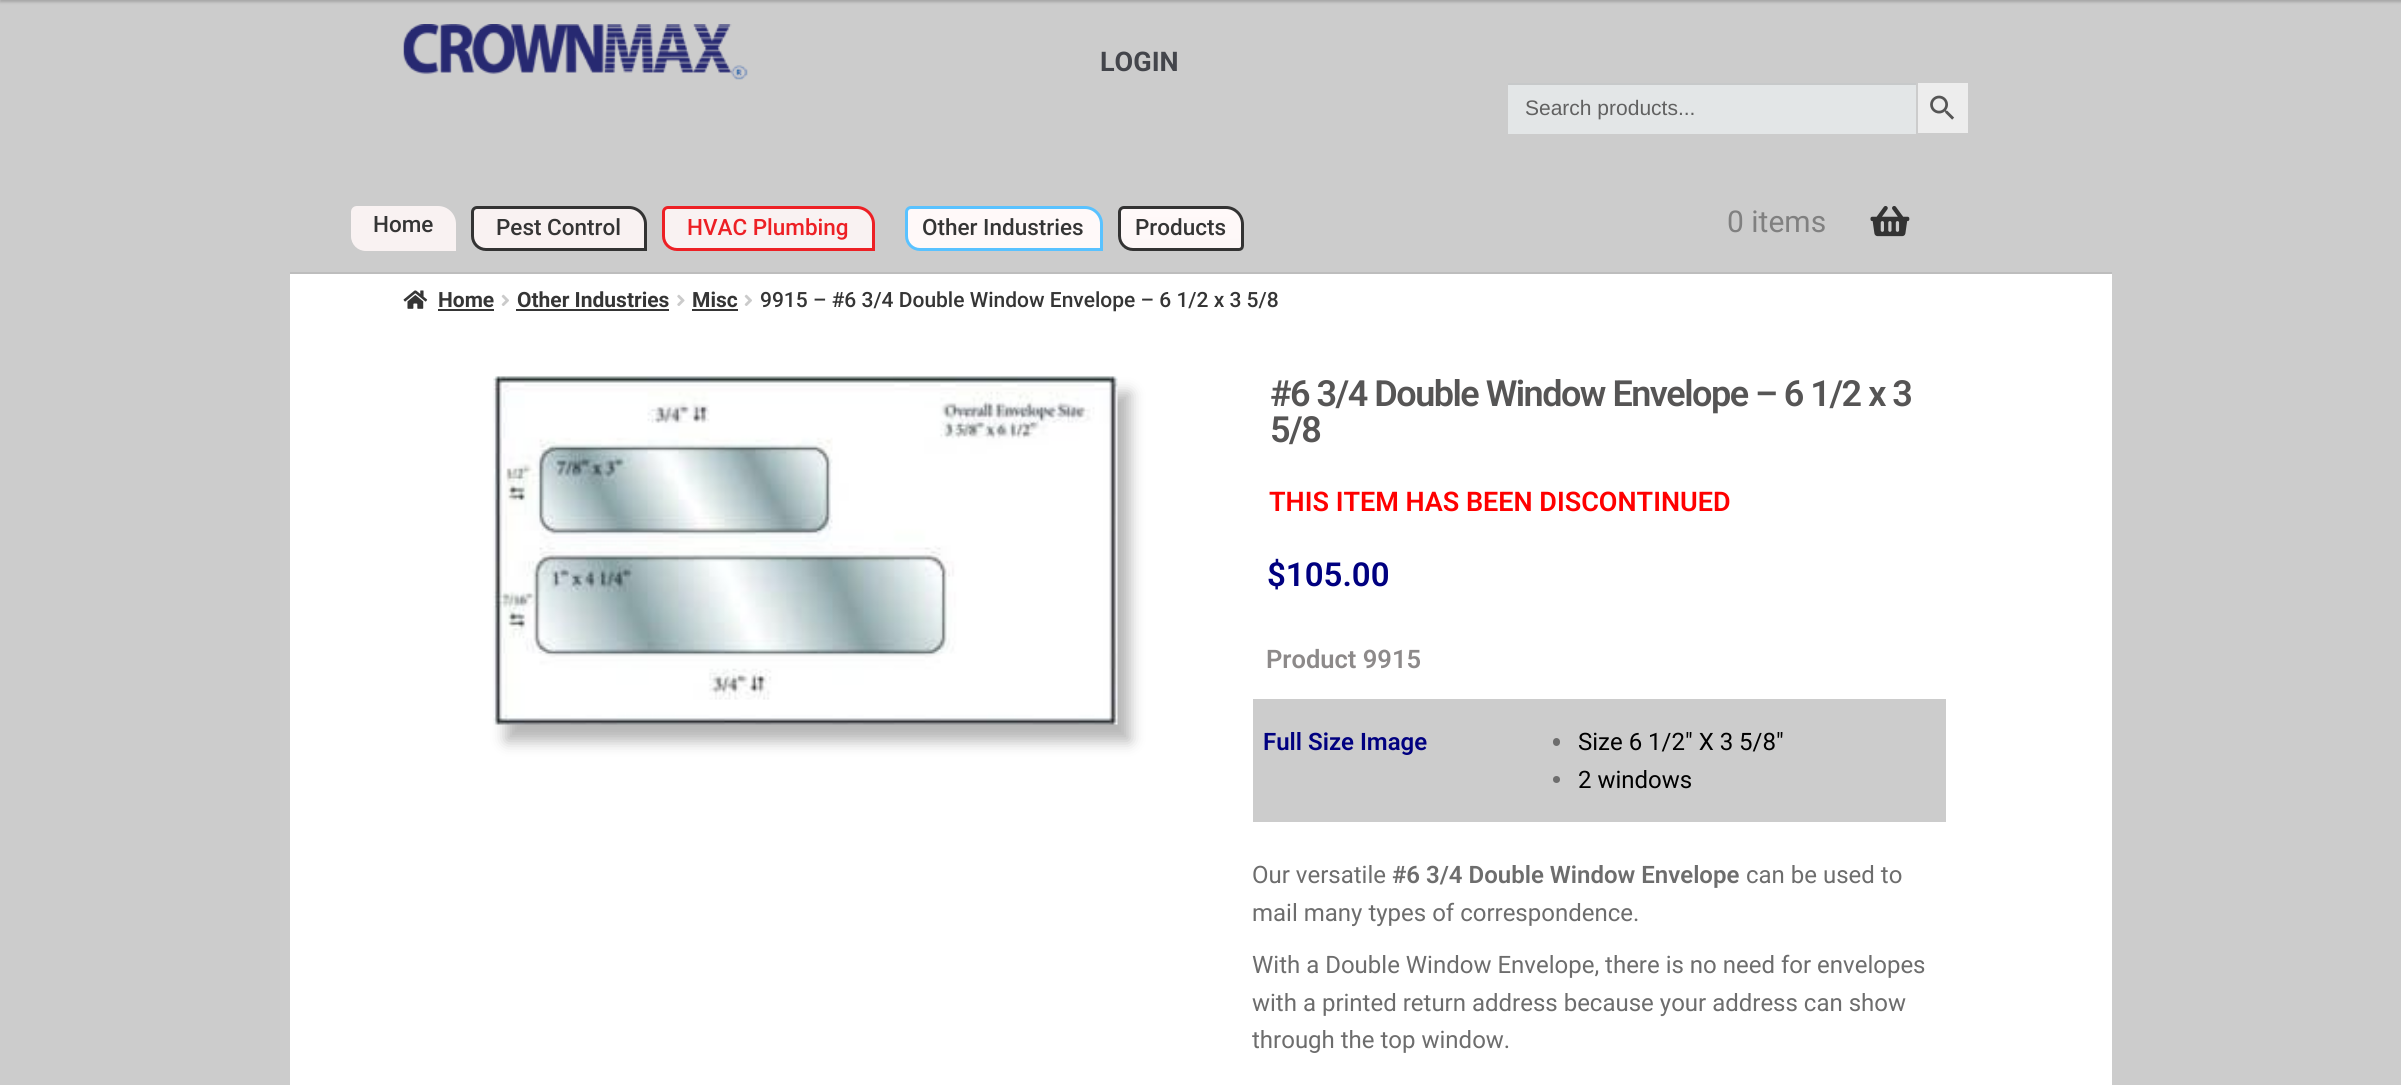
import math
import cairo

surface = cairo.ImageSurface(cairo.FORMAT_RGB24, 2401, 1085)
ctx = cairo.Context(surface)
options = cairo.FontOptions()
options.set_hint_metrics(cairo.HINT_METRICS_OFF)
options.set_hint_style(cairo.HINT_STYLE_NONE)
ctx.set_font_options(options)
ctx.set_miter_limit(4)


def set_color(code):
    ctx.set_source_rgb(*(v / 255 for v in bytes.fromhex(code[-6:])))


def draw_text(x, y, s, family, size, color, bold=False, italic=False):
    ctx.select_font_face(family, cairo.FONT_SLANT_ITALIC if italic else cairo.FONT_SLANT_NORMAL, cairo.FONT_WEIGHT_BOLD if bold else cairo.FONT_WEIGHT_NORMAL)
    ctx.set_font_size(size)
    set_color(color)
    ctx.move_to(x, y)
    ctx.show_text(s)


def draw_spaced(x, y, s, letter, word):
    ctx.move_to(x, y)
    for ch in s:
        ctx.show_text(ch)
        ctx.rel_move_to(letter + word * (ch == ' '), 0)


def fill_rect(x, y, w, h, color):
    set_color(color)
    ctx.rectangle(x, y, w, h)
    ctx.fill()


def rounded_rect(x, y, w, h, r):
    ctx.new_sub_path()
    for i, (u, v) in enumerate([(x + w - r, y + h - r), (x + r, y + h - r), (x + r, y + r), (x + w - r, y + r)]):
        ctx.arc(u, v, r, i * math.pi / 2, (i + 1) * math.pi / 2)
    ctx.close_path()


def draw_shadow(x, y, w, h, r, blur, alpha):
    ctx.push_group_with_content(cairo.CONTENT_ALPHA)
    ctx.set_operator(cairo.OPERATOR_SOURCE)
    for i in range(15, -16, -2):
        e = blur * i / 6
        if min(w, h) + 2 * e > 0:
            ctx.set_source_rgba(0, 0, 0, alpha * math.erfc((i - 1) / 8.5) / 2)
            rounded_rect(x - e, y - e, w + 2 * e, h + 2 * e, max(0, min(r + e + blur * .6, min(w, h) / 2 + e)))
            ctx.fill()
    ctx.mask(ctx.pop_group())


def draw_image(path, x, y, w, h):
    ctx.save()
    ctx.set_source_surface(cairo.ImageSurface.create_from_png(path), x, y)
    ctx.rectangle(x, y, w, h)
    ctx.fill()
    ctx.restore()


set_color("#cccccc")
ctx.paint()
fill_rect(290, 274, 1822, 811, "#ffffff")
set_color("#000000")
draw_shadow(0, -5, 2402, 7, 0, 1.5, 0.2)
fill_rect(290, 272, 1822, 2, "#bdbdbd")
draw_image("assets/img1.png", 403, 24, 345, 56)
draw_text(1100, 71, "LOGIN", "Roboto", 27, "#43454b", bold=True)
fill_rect(1508, 85, 408, 49, "#e3e6e7")
fill_rect(1508, 83, 409, 2, "#c7c9ca")
draw_text(1525, 115, "Search products...", "Liberation Sans", 21, "#616161")
set_color("#ededed")
ctx.rectangle(1917, 82, 52, 52)
ctx.fill_preserve()
set_color("#cccccc")
ctx.stroke()
draw_image("assets/img2.png", 1930, 95, 25, 25)
set_color("#f9f2f2")
ctx.new_path()
ctx.move_to(357, 206)
ctx.line_to(438, 206)
ctx.curve_to(448, 206, 456, 214, 456, 224)
ctx.line_to(456, 251)
ctx.line_to(366, 251)
ctx.curve_to(357.5, 251, 351, 244.5, 351, 236)
ctx.line_to(351, 212)
ctx.curve_to(351, 208.5, 353.5, 206, 357, 206)
ctx.close_path()
ctx.fill()
draw_text(373, 232, "Home", "Roboto Medium", 22.5, "#353535")
set_color("#f9f2f2")
ctx.new_path()
ctx.move_to(477, 207.5)
ctx.line_to(629, 207.5)
ctx.curve_to(638, 207.5, 645.5, 215, 645.5, 224)
ctx.line_to(645.5, 249.5)
ctx.line_to(486, 249.5)
ctx.curve_to(478.5, 249.5, 472.5, 243.5, 472.5, 236)
ctx.line_to(472.5, 212)
ctx.curve_to(472.5, 209.5, 474.5, 207.5, 477, 207.5)
ctx.close_path()
ctx.fill_preserve()
set_color("#333333")
ctx.set_line_width(3)
ctx.stroke()
draw_text(496, 235, "Pest Control", "Roboto Medium", 22.5, "#353535")
set_color("#f9f2f2")
ctx.new_path()
ctx.move_to(668, 207.5)
ctx.line_to(857, 207.5)
ctx.curve_to(866, 207.5, 873.5, 215, 873.5, 224)
ctx.line_to(873.5, 249.5)
ctx.line_to(677, 249.5)
ctx.curve_to(669.5, 249.5, 663.5, 243.5, 663.5, 236)
ctx.line_to(663.5, 212)
ctx.curve_to(663.5, 209.5, 665.5, 207.5, 668, 207.5)
ctx.close_path()
ctx.fill_preserve()
set_color("#ed2025")
ctx.stroke()
draw_text(687, 235, "HVAC Plumbing", "Roboto Medium", 22.5, "#ed2025")
set_color("#fff9f9")
ctx.new_path()
ctx.move_to(911, 207.5)
ctx.line_to(1085, 207.5)
ctx.curve_to(1094, 207.5, 1101.5, 215, 1101.5, 224)
ctx.line_to(1101.5, 249.5)
ctx.line_to(920, 249.5)
ctx.curve_to(912.5, 249.5, 906.5, 243.5, 906.5, 236)
ctx.line_to(906.5, 212)
ctx.curve_to(906.5, 209.5, 908.5, 207.5, 911, 207.5)
ctx.close_path()
ctx.fill_preserve()
set_color("#59c2ff")
ctx.stroke()
draw_text(922, 235, "Other Industries", "Roboto Medium", 22.5, "#353535")
ctx.save()
ctx.new_path()
ctx.move_to(1124, 206)
ctx.line_to(1226, 206)
ctx.curve_to(1236, 206, 1244, 214, 1244, 224)
ctx.line_to(1244, 246)
ctx.curve_to(1244, 249, 1242, 251, 1239, 251)
ctx.line_to(1133, 251)
ctx.curve_to(1124.5, 251, 1118, 244.5, 1118, 236)
ctx.line_to(1118, 212)
ctx.curve_to(1118, 208.5, 1120.5, 206, 1124, 206)
ctx.close_path()
ctx.clip()
gradient = cairo.LinearGradient(1181, 209, 1181, 248)
gradient.add_color_stop_rgba(0, 1, 0.976, 0.976, 1)
gradient.add_color_stop_rgba(1, 0.992, 0.969, 0.969, 1)
ctx.set_source(gradient)
ctx.rectangle(1118, 209, 126, 39)
ctx.fill()
ctx.restore()
ctx.new_path()
ctx.move_to(1124, 207.5)
ctx.line_to(1226, 207.5)
ctx.curve_to(1235, 207.5, 1242.5, 215, 1242.5, 224)
ctx.line_to(1242.5, 246)
ctx.curve_to(1242.5, 248, 1241, 249.5, 1239, 249.5)
ctx.line_to(1133, 249.5)
ctx.curve_to(1125.5, 249.5, 1119.5, 243.5, 1119.5, 236)
ctx.line_to(1119.5, 212)
ctx.curve_to(1119.5, 209.5, 1121.5, 207.5, 1124, 207.5)
ctx.close_path()
set_color("#333333")
ctx.stroke()
draw_text(1135, 235, "Products", "Roboto Medium", 22.5, "#353535")
draw_text(1727, 232, "0 items", "Roboto", 30, "#808080")
draw_image("assets/img3.png", 1870, 206, 40, 31)
draw_image("assets/img4.png", 403, 290, 25, 19)
draw_text(438, 307, "Home", "Roboto", 21, "#353535", bold=True)
fill_rect(438, 309, 56, 2, "#353535")
draw_image("assets/img5.png", 501, 294, 8, 12)
draw_text(517, 307, "Other Industries", "Roboto", 21, "#353535", bold=True)
fill_rect(516, 309, 153, 2, "#353535")
draw_image("assets/img6.png", 677, 294, 8, 12)
draw_text(692, 307, "Misc", "Roboto", 21, "#353535", bold=True)
fill_rect(692, 309, 46, 2, "#353535")
draw_image("assets/img5.png", 744, 294, 8, 12)
draw_text(760, 307, "9915 – #6 3/4 Double Window Envelope – 6 1/2 x 3 5/8", "Roboto Medium", 21, "#353535")
set_color("#000000")
draw_shadow(506, 393, 624, 348, 0, 7.5, 0.29)
draw_image("assets/img7.png", 493, 376, 625, 349)
ctx.select_font_face("Roboto SemiBold")
ctx.set_font_size(36)
set_color("#565555")
draw_spaced(1270, 406, "#6 3/4 Double Window Envelope – 6 1/2 x 3", -1.5, 0)
draw_spaced(1270, 442, "5/8", -1.5, 0)
draw_text(1269, 511, "THIS ITEM HAS BEEN DISCONTINUED", "Roboto SemiBold", 27, "#ff0000")
draw_text(1267, 586, "$105.00", "Roboto SemiBold", 33, "#000080")
draw_text(1266, 668, "Product 9915", "Roboto SemiBold", 25.5, "#8d8a8a")
fill_rect(1253, 699, 693, 123, "#cccccc")
draw_text(1263, 750, "Full Size Image", "Roboto SemiBold", 24, "#000080")
set_color("#6d6d6d")
rounded_rect(1553, 738, 7, 8, 3.5)
ctx.fill()
draw_text(1578, 750, "Size 6 1/2″ X 3 5/8″", "Roboto", 24, "#000000")
set_color("#6d6d6d")
ctx.new_path()
ctx.arc(1556.5, 779.5, 3.5, 0, 2 * math.pi)
ctx.fill()
draw_text(1578, 788, "2 windows", "Roboto", 24, "#000000")
draw_text(1252, 883, "Our versatile", "Roboto", 24, "#6d6d6d")
draw_text(1392, 883, "#6 3/4 Double Window Envelope", "Roboto SemiBold", 24, "#6d6d6d")
draw_text(1746, 883, "can be used to", "Roboto", 24, "#6d6d6d")
draw_text(1252, 921, "mail many types of correspondence.", "Roboto", 24, "#6d6d6d")
draw_text(1252, 973, "With a Double Window Envelope, there is no need for envelopes", "Roboto", 24, "#6d6d6d")
draw_text(1252, 1011, "with a printed return address because your address can show", "Roboto", 24, "#6d6d6d")
draw_text(1252, 1048, "through the top window.", "Roboto", 24, "#6d6d6d")
surface.write_to_png("output.png")
